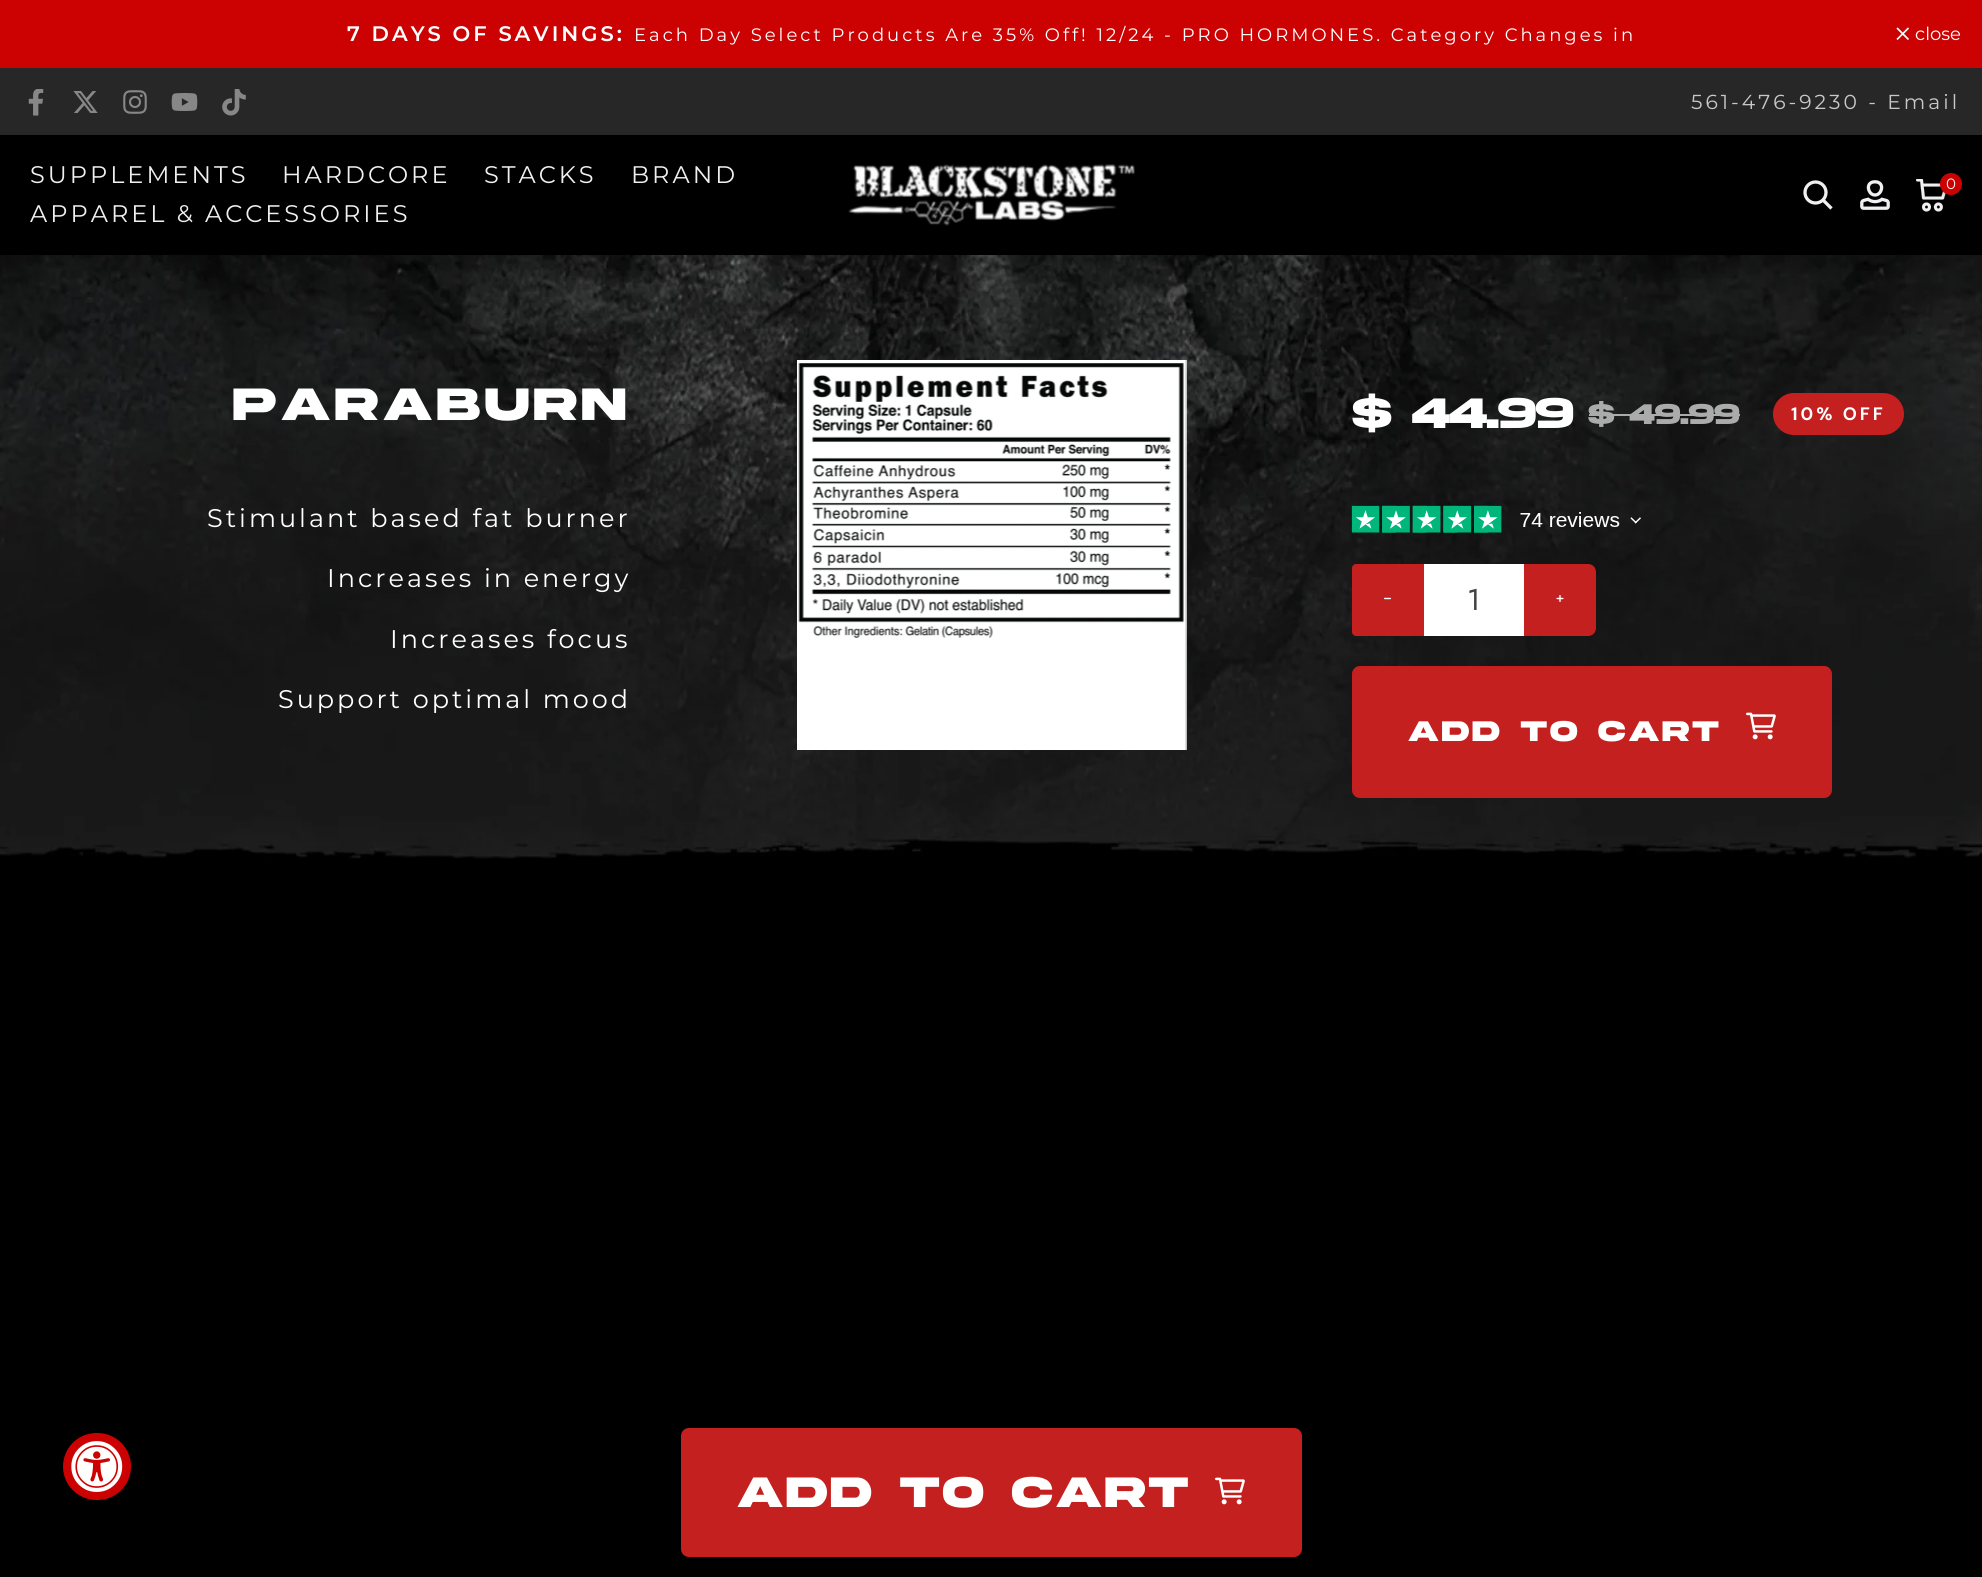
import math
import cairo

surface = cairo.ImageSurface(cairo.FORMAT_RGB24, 1982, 1577)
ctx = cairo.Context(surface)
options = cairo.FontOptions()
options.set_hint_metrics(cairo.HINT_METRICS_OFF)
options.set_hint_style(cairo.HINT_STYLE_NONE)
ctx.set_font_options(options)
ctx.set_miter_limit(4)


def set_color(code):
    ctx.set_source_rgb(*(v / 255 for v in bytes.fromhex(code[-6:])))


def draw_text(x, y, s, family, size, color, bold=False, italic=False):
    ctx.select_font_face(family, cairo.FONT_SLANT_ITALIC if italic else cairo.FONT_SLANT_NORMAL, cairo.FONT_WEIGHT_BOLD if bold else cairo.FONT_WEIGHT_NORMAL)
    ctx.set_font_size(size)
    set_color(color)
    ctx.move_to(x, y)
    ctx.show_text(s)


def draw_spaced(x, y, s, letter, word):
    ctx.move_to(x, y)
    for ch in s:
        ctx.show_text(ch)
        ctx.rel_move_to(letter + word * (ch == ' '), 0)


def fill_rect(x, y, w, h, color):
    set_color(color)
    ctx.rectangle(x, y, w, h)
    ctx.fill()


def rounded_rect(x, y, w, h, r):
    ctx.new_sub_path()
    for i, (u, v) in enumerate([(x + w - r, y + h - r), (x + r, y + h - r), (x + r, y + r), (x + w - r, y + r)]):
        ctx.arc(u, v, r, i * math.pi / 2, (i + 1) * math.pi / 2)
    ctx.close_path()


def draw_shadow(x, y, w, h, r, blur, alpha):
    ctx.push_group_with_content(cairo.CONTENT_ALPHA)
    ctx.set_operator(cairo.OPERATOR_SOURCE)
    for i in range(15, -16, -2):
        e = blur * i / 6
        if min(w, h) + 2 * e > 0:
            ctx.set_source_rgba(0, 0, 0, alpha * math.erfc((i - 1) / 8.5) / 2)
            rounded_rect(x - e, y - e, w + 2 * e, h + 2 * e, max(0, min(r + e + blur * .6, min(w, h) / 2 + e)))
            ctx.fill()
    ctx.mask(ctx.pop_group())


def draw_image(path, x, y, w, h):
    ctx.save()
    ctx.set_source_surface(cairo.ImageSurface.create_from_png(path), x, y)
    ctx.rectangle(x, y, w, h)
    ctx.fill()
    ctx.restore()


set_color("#000000")
ctx.paint()
fill_rect(0, 0, 1982, 68, "#cc0202")
ctx.select_font_face("Montserrat SemiBold")
ctx.set_font_size(21)
set_color("#ffffff")
draw_spaced(347, 41, "7 DAYS OF SAVINGS:", 3, 0)
ctx.select_font_face("Montserrat")
ctx.set_font_size(18)
draw_spaced(634, 41, "Each Day Select Products Are 35% Off! 12/24 - PRO HORMONES. Category Changes in", 3, 0)
ctx.new_path()
ctx.move_to(1908.5, 28)
ctx.line_to(1897, 39.5)
ctx.move_to(1908.5, 39.5)
ctx.line_to(1897, 28)
ctx.set_line_width(1.7)
ctx.stroke()
draw_text(1915, 40, "close", "Montserrat", 18, "#ffffff")
fill_rect(0, 68, 1982, 67, "#272727")
draw_image("assets/img1.png", 28, 89, 16, 27)
draw_image("assets/img2.png", 73, 91, 25, 22)
draw_image("assets/img3.png", 123, 90, 24, 24)
draw_image("assets/img4.png", 171, 93, 27, 18)
draw_image("assets/img5.png", 222, 89, 24, 27)
ctx.set_font_size(20.25)
set_color("#c8c8c8")
draw_spaced(1691, 109, "561-476-9230 - Email", 3, 0)
ctx.set_font_size(24)
set_color("#f0f0f2")
draw_spaced(30, 183, "SUPPLEMENTS", 3, 0)
draw_spaced(282, 183, "HARDCORE", 3, 0)
draw_spaced(484, 183, "STACKS", 3, 0)
draw_spaced(631, 183, "BRAND", 3, 0)
draw_spaced(30, 222, "APPAREL & ACCESSORIES", 3, 0)
draw_image("assets/img6.png", 848, 164, 287, 62)
ctx.arc(1815.5, 192.5, 10.5, 0, 2 * math.pi)
ctx.set_line_width(3.3)
ctx.stroke()
ctx.new_path()
ctx.move_to(1823, 200)
ctx.line_to(1831.5, 208.5)
ctx.stroke()
draw_image("assets/img7.png", 1860, 180, 30, 30)
draw_image("assets/img8.png", 1916, 179, 30, 33)
set_color("#000000")
draw_shadow(1941, 174, 23, 23, 11.5, 2, 0.3)
set_color("#cc0202")
ctx.arc(1951, 184, 11, 0, 2 * math.pi)
ctx.fill()
draw_text(1946, 189, "0", "Montserrat", 15, "#f0f0f2")
draw_image("assets/img9.png", 0, 255, 1982, 604)
ctx.select_font_face("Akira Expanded", cairo.FONT_SLANT_NORMAL, cairo.FONT_WEIGHT_BOLD)
ctx.set_font_size(48)
set_color("#ffffff")
draw_spaced(233, 420, "Paraburn", 4.75, 0)
ctx.select_font_face("Montserrat")
ctx.set_font_size(25.5)
draw_spaced(207, 527, "Stimulant based fat burner", 3, 0)
draw_spaced(327, 587, "Increases in energy", 3, 0)
draw_spaced(390, 648, "Increases focus", 3, 0)
draw_spaced(278, 708, "Support optimal mood", 3, 0)
draw_image("assets/img10.png", 797, 360, 390, 390)
ctx.select_font_face("Akira Expanded", cairo.FONT_SLANT_NORMAL, cairo.FONT_WEIGHT_BOLD)
ctx.set_font_size(45)
draw_spaced(1352, 428, "$ 44.99", -1, 0)
draw_text(1588, 424, "$ 49.99", "Akira Expanded", 30, "#ababab", bold=True)
fill_rect(1589, 414, 151, 2, "#ababab")
set_color("#c4201f")
rounded_rect(1773, 393, 131, 42, 21)
ctx.fill()
ctx.select_font_face("DM Sans", cairo.FONT_SLANT_NORMAL, cairo.FONT_WEIGHT_BOLD)
ctx.set_font_size(18)
set_color("#ffffff")
draw_spaced(1791, 420, "10% OFF", 3, 0)
draw_image("assets/img11.png", 1351, 505, 290, 28)
set_color("#c4201f")
ctx.new_path()
ctx.move_to(1356, 564)
ctx.line_to(1424, 564)
ctx.line_to(1424, 636)
ctx.line_to(1356, 636)
ctx.curve_to(1354, 636, 1352, 634, 1352, 632)
ctx.line_to(1352, 568)
ctx.curve_to(1352, 566, 1354, 564, 1356, 564)
ctx.close_path()
ctx.fill()
draw_image("assets/img12.png", 1383, 597, 9, 3)
fill_rect(1424, 564, 100, 72, "#ffffff")
draw_text(1467, 610, "1", "Jost", 30, "#444444")
set_color("#c4201f")
ctx.new_path()
ctx.move_to(1524, 564)
ctx.line_to(1588, 564)
ctx.curve_to(1592.5, 564, 1596, 567.5, 1596, 572)
ctx.line_to(1596, 628)
ctx.curve_to(1596, 632.5, 1592.5, 636, 1588, 636)
ctx.line_to(1524, 636)
ctx.close_path()
ctx.fill()
draw_image("assets/img13.png", 1556, 595, 8, 7)
rounded_rect(1352, 666, 480, 132, 8)
ctx.fill()
ctx.select_font_face("Akira Expanded", cairo.FONT_SLANT_NORMAL, cairo.FONT_WEIGHT_BOLD)
set_color("#ffffff")
draw_spaced(1408, 741, "Add to cart", 3, 0)
draw_image("assets/img14.png", 1746, 712, 30, 28)
set_color("#c4201f")
rounded_rect(681, 1428, 621, 129, 8)
ctx.fill()
ctx.set_font_size(45)
set_color("#ffffff")
draw_spaced(737, 1507, "Add to Cart", 3, 0)
draw_image("assets/img14.png", 1215, 1477, 30, 28)
set_color("#cc0202")
rounded_rect(63, 1433, 68, 67, 33.5)
ctx.fill()
draw_image("assets/img15.png", 71, 1441, 52, 51)
surface.write_to_png("output.png")
